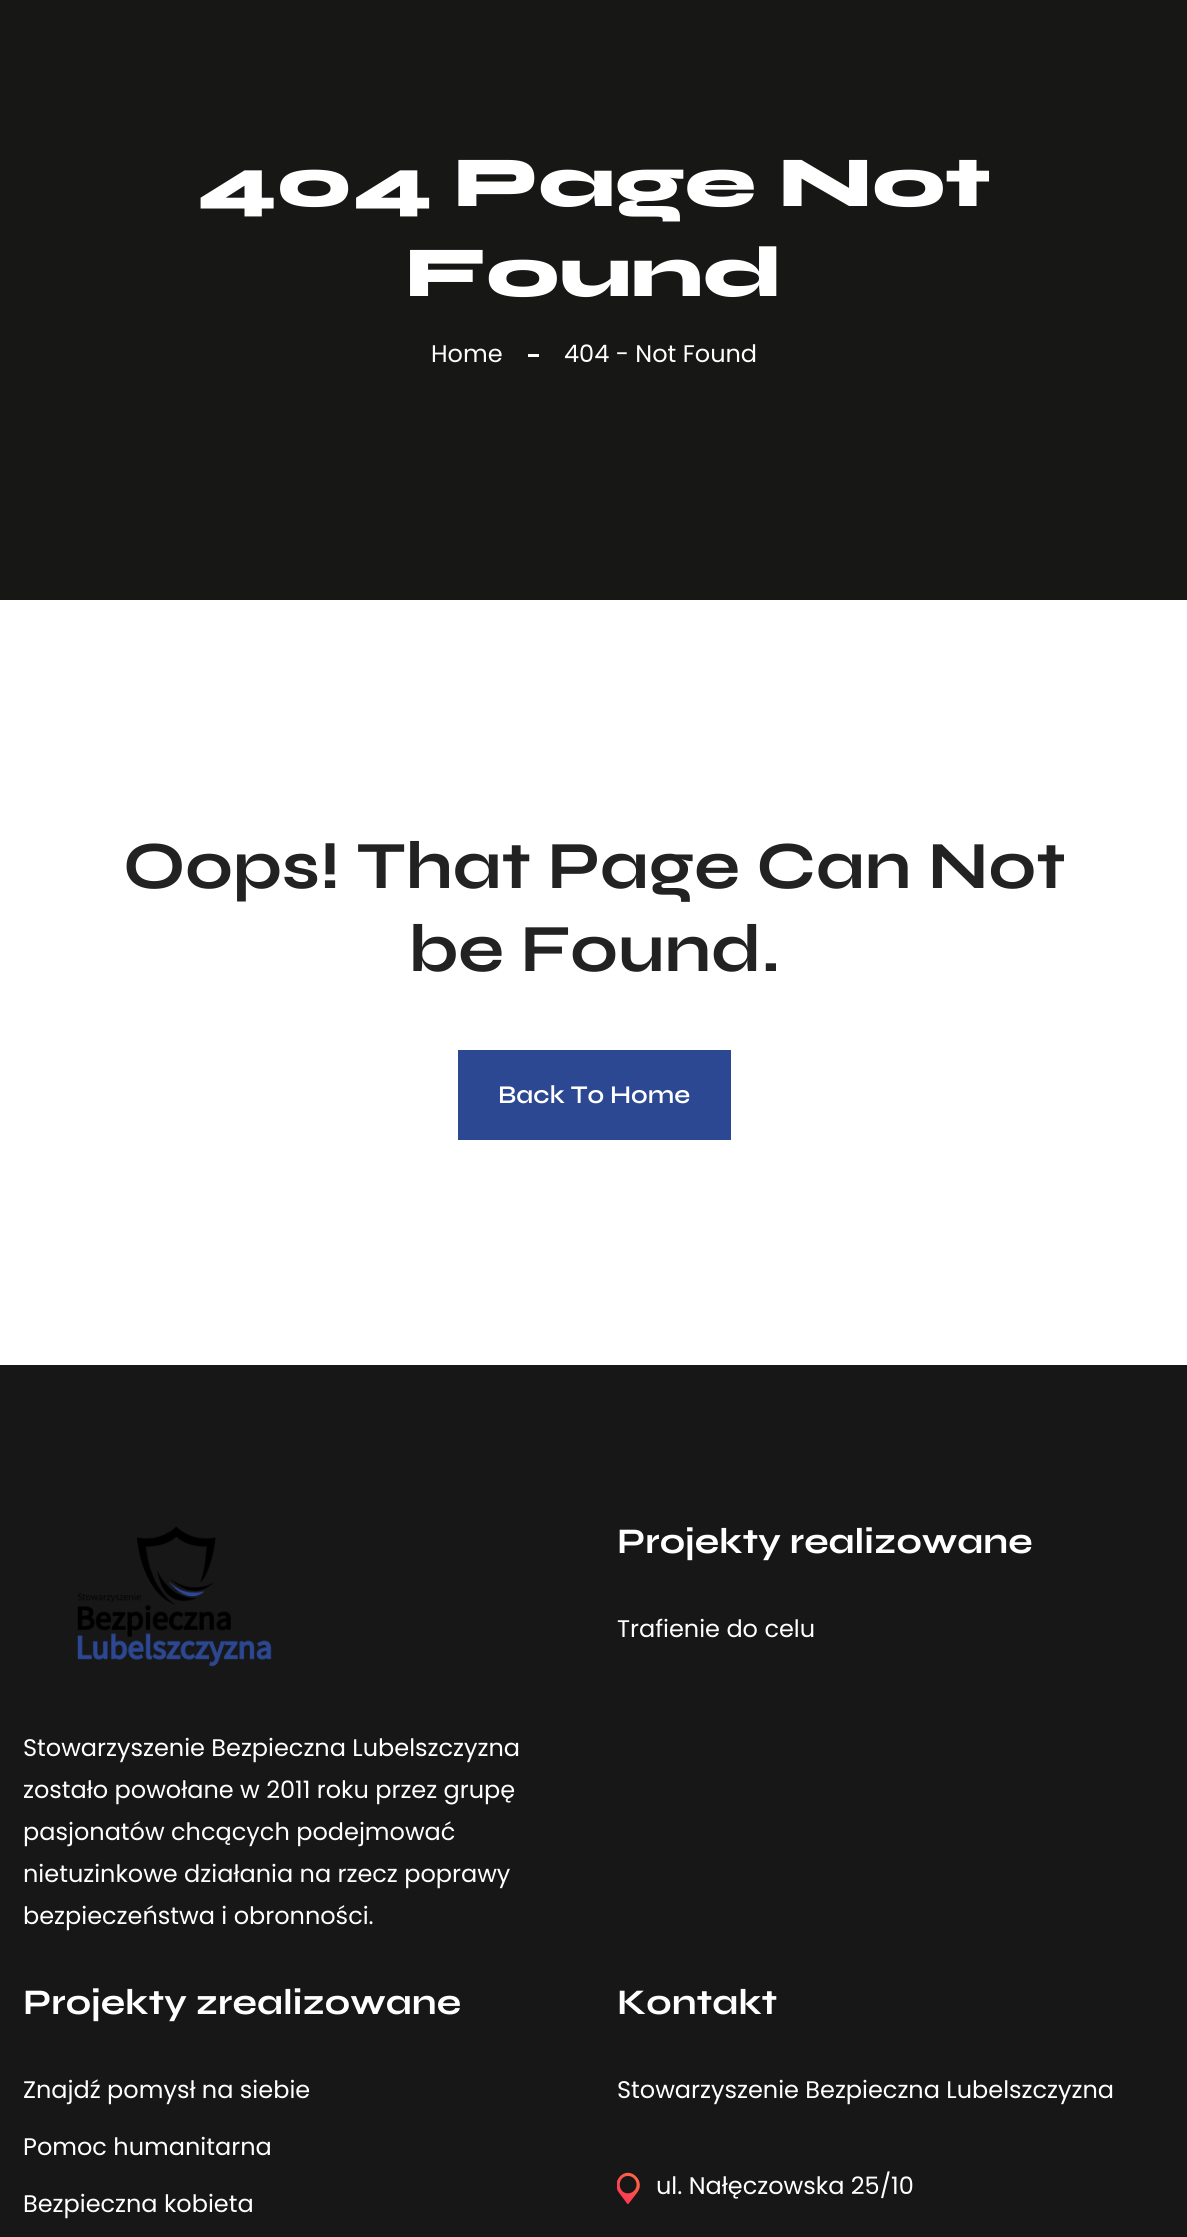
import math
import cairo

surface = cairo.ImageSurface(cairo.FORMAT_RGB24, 1187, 2237)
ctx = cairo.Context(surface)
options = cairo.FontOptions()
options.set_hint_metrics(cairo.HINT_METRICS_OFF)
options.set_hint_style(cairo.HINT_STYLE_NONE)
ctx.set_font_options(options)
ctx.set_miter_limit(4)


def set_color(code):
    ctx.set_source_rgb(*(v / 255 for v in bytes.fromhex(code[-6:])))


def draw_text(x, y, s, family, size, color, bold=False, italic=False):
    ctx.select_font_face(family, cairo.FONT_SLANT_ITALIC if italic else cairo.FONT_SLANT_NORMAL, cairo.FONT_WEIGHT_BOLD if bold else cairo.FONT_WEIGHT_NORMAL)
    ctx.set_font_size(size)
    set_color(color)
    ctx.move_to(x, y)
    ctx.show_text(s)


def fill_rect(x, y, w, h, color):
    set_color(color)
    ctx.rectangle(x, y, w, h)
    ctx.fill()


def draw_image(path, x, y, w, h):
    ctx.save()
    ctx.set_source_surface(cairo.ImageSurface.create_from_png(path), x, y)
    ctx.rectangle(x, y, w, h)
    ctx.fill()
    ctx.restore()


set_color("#ffffff")
ctx.paint()
fill_rect(0, 0, 1187, 600, "#171816")
draw_text(197, 206, "404 Page Not", "Syne ExtraBold", 72, "#ffffff")
draw_text(405, 296, "Found", "Syne ExtraBold", 72, "#ffffff")
draw_text(431, 362, "Home", "Poppins", 24, "#ffffff")
fill_rect(528, 354, 11, 3, "#ffffff")
draw_text(564, 362, "404 - Not Found", "Poppins", 24, "#ffffff")
draw_text(123, 888, "Oops! That Page Can Not", "Syne", 67.5, "#222222", bold=True)
draw_text(408, 971, "be Found.", "Syne", 67.5, "#222222", bold=True)
fill_rect(458, 1050, 273, 90, "#2d4892")
draw_text(498, 1103, "Back To Home", "Syne SemiBold", 25.5, "#ffffff")
fill_rect(0, 1365, 1187, 872, "#171717")
draw_text(617, 1553, "Projekty realizowane", "Syne", 36, "#ffffff", bold=True)
draw_text(617, 1637, "Trafienie do celu", "Poppins", 24, "#ffffff")
draw_image("assets/img1.png", 77, 1526, 195, 141)
draw_text(23, 1756, "Stowarzyszenie Bezpieczna Lubelszczyzna", "Poppins", 24, "#ffffff")
draw_text(23, 1798, "zostało powołane w 2011 roku przez grupę", "Poppins", 24, "#ffffff")
draw_text(23, 1840, "pasjonatów chcących podejmować", "Poppins", 24, "#ffffff")
draw_text(23, 1882, "nietuzinkowe działania na rzecz poprawy", "Poppins", 24, "#ffffff")
draw_text(23, 1924, "bezpieczeństwa i obronności.", "Poppins", 24, "#ffffff")
draw_text(23, 2014, "Projekty zrealizowane", "Syne", 36, "#ffffff", bold=True)
draw_text(23, 2098, "Znajdź pomysł na siebie", "Poppins", 24, "#ffffff")
draw_text(23, 2155, "Pomoc humanitarna", "Poppins", 24, "#ffffff")
draw_text(23, 2212, "Bezpieczna kobieta", "Poppins", 24, "#ffffff")
draw_text(617, 2014, "Kontakt", "Syne", 36, "#ffffff", bold=True)
draw_text(617, 2098, "Stowarzyszenie Bezpieczna Lubelszczyzna", "Poppins", 24, "#ffffff")
draw_image("assets/img2.png", 617, 2172, 23, 32)
draw_text(656, 2194, "ul. Nałęczowska 25/10", "Poppins", 24, "#ffffff")
surface.write_to_png("output.png")
